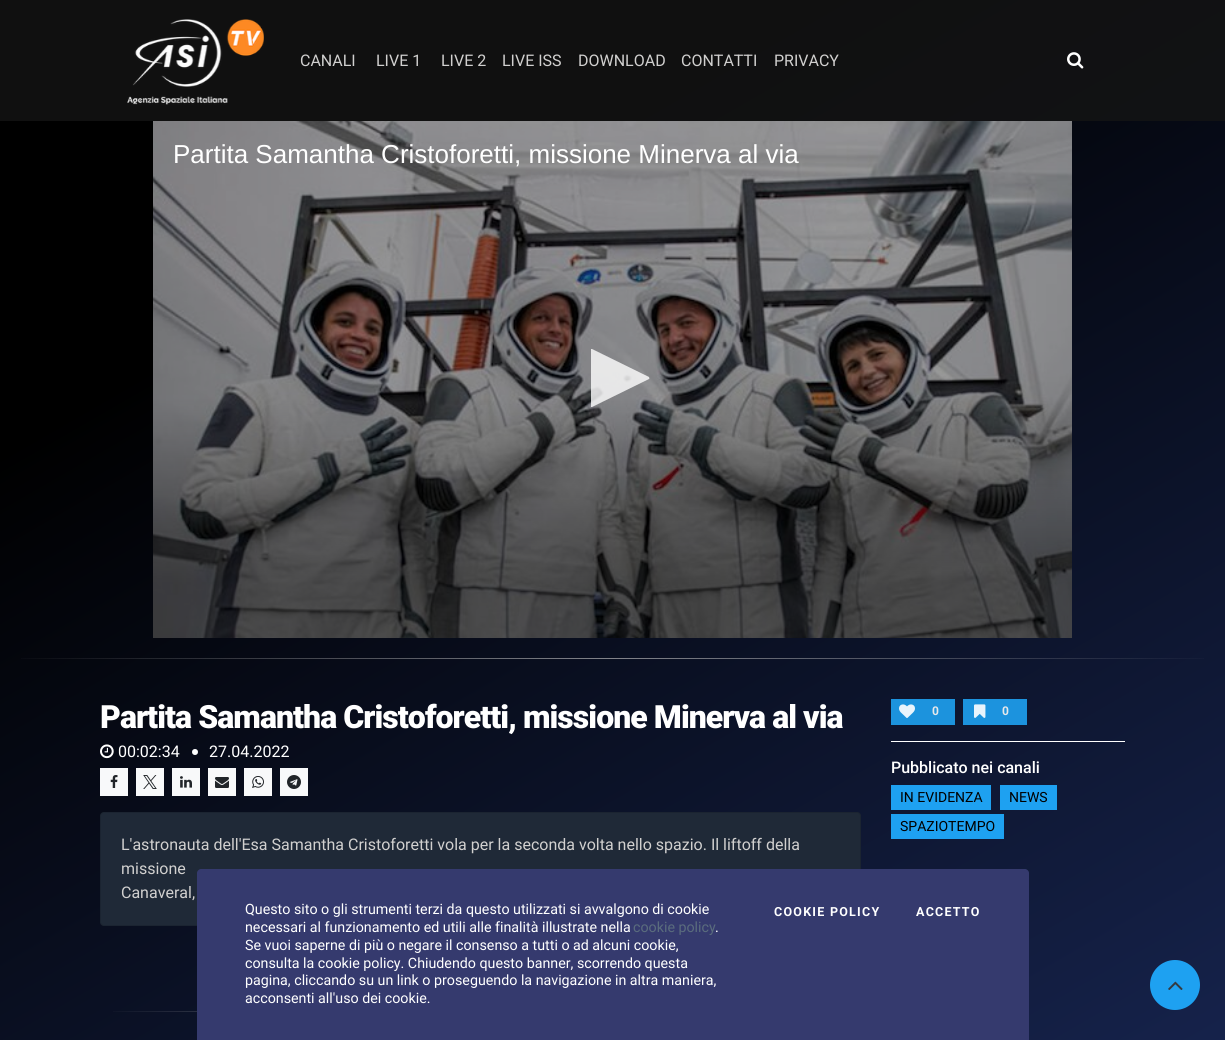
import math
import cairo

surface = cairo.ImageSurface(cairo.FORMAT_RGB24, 1225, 1040)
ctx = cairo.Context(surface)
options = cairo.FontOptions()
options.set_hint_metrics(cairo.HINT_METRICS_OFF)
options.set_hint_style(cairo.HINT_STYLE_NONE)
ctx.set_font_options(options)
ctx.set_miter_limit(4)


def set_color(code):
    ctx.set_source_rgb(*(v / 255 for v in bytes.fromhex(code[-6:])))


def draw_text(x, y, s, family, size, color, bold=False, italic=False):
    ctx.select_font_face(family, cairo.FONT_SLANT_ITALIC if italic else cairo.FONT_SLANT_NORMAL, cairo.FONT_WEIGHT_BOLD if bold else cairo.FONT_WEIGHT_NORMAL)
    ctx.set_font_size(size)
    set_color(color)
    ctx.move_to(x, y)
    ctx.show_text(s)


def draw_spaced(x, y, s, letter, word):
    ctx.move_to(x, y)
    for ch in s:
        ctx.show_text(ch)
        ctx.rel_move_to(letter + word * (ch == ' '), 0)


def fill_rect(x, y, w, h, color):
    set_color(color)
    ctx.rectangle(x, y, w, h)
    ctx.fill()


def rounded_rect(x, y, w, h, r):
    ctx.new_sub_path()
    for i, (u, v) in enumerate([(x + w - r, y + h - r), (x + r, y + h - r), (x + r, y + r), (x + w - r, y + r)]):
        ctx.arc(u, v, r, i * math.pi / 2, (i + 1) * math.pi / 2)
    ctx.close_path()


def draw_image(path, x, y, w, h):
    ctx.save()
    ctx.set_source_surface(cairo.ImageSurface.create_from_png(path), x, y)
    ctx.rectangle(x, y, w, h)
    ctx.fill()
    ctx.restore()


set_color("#ffffff")
ctx.paint()
gradient = cairo.LinearGradient(121, -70, 1104, 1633)
gradient.add_color_stop_rgba(0.2, 0, 0, 0, 1)
gradient.add_color_stop_rgba(1, 0.118, 0.188, 0.412, 1)
ctx.set_source(gradient)
ctx.rectangle(0, 121, 1225, 919)
ctx.fill()
gradient = cairo.LinearGradient(121, -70, 1104, 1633)
gradient.add_color_stop_rgba(0.2, 0.063, 0.063, 0.063, 1)
gradient.add_color_stop_rgba(1, 0.086, 0.102, 0.145, 1)
ctx.set_source(gradient)
ctx.rectangle(0, 0, 1225, 121)
ctx.fill()
gradient = cairo.LinearGradient(121, -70, 1104, 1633)
gradient.add_color_stop_rgba(0.2, 0.106, 0.569, 0.851, 1)
gradient.add_color_stop_rgba(1, 0.118, 0.588, 0.89, 1)
ctx.set_source(gradient)
ctx.rectangle(963, 699, 64, 26)
ctx.fill()
ctx.rectangle(891, 699, 64, 26)
ctx.fill()
draw_image("assets/img1.png", 127, 19, 137, 86)
draw_text(300, 66, "CANALI", "Roboto", 16, "#d1d0cf")
draw_text(376, 66, "LIVE 1", "Roboto", 16, "#d1d0cf")
draw_text(441, 66, "LIVE 2", "Roboto", 16, "#d1d0cf")
draw_text(502, 66, "LIVE ISS", "Roboto", 16, "#d1d0cf")
draw_text(578, 66, "DOWNLOAD", "Roboto", 16, "#d1d0cf")
draw_text(681, 66, "CONTATTI", "Roboto", 16, "#d1d0cf")
draw_text(774, 66, "PRIVACY", "Roboto", 16, "#d1d0cf")
draw_image("assets/img2.png", 1067, 52, 17, 17)
draw_image("assets/img3.png", 21, 658, 1183, 1)
draw_image("assets/img4.png", 153, 121, 919, 517)
draw_text(173, 163, "Partita Samantha Cristoforetti, missione Minerva al via", "Liberation Sans", 26, "#ffffff")
ctx.set_source_rgba(1, 1, 1, 0.8)
ctx.new_path()
ctx.move_to(592, 407)
ctx.line_to(591, 407)
ctx.line_to(591, 349)
ctx.line_to(592, 349)
ctx.line_to(649, 377)
ctx.curve_to(649, 378, 650, 378, 649, 379)
ctx.close_path()
ctx.fill()
draw_image("assets/img5.png", 113, 1011, 84, 1)
ctx.select_font_face("Roboto Black")
ctx.set_font_size(32)
set_color("#ffffff")
draw_spaced(100, 728, "Partita Samantha Cristoforetti, missione Minerva al via", -0.95, 0)
draw_image("assets/img6.png", 100, 744, 14, 15)
draw_text(118, 757, "00:02:34", "Roboto", 16, "#ffffff")
ctx.new_path()
ctx.arc(195, 752, 3, 0, 2 * math.pi)
ctx.fill()
draw_text(209, 757, "27.04.2022", "Roboto", 16, "#ffffff")
fill_rect(100, 768, 28, 28, "#f8f9fa")
draw_image("assets/img7.png", 110, 775, 8, 13)
fill_rect(136, 768, 28, 28, "#f8f9fa")
draw_image("assets/img8.png", 143, 775, 14, 14)
fill_rect(172, 768, 28, 28, "#f8f9fa")
draw_image("assets/img9.png", 180, 776, 12, 12)
fill_rect(208, 768, 28, 28, "#f8f9fa")
draw_image("assets/img10.png", 215, 777, 14, 11)
fill_rect(244, 768, 28, 28, "#f8f9fa")
draw_image("assets/img11.png", 252, 776, 12, 12)
fill_rect(280, 768, 28, 28, "#f8f9fa")
draw_image("assets/img12.png", 287, 775, 14, 14)
set_color("#1f2937")
rounded_rect(100, 812, 761, 114, 4)
ctx.fill()
rounded_rect(100.5, 812.5, 760, 113, 3.5)
ctx.set_source_rgba(0, 0, 0, 0.12)
ctx.set_line_width(1)
ctx.stroke()
draw_text(121, 850, "L'astronauta dell'Esa Samantha Cristoforetti vola per la seconda volta nello spazio. Il liftoff della", "Roboto", 16, "#d1d0cf")
draw_text(121, 874, "missione", "Roboto", 16, "#d1d0cf")
draw_text(121, 898, "Canaveral,", "Roboto", 16, "#d1d0cf")
fill_rect(891, 741, 234, 1, "#ffffff")
draw_image("assets/img13.png", 899, 704, 16, 14)
draw_text(932, 715, "0", "Roboto", 12, "#e7e8ea", bold=True)
draw_image("assets/img14.png", 974, 704, 12, 14)
draw_text(1002, 715, "0", "Roboto", 12, "#e7e8ea", bold=True)
draw_text(891, 773, "Pubblicato nei canali", "Roboto Medium", 16, "#ffffff")
fill_rect(891, 785, 100, 25, "#1ea1f1")
draw_text(900, 802, "IN EVIDENZA", "Roboto", 14, "#000000")
fill_rect(1000, 785, 57, 25, "#1ea1f1")
draw_text(1009, 802, "NEWS", "Roboto", 14, "#000000")
fill_rect(891, 814, 113, 25, "#1ea1f1")
draw_text(900, 831, "SPAZIOTEMPO", "Roboto", 14, "#000000")
set_color("#1ea1f1")
ctx.new_path()
ctx.arc(1175, 985, 25, 0, 2 * math.pi)
ctx.fill()
draw_image("assets/img15.png", 1168, 981, 15, 9)
set_color("#353a6e")
ctx.new_path()
ctx.move_to(201, 869)
ctx.line_to(1025, 869)
ctx.curve_to(1027, 869, 1029, 871, 1029, 873)
ctx.line_to(1029, 1040)
ctx.line_to(197, 1040)
ctx.line_to(197, 873)
ctx.curve_to(197, 871, 199, 869, 201, 869)
ctx.close_path()
ctx.fill()
draw_text(245, 914, "Questo sito o gli strumenti terzi da questo utilizzati si avvalgono di cookie", "Roboto", 14.25, "#ffffff")
draw_text(245, 932, "necessari al funzionamento ed utili alle finalità illustrate nella", "Roboto", 14.25, "#ffffff")
draw_text(633, 932, "cookie policy", "Roboto", 14.25, "#5a6c7d")
draw_text(715, 932, ".", "Roboto", 14.25, "#ffffff")
draw_text(245, 950, "Se vuoi saperne di più o negare il consenso a tutti o ad alcuni cookie,", "Roboto", 14.25, "#ffffff")
draw_text(245, 968, "consulta la cookie policy. Chiudendo questo banner, scorrendo questa", "Roboto", 14.25, "#ffffff")
draw_text(245, 985, "pagina, cliccando su un link o proseguendo la navigazione in altra maniera,", "Roboto", 14.25, "#ffffff")
draw_text(245, 1003, "acconsenti all'uso dei cookie.", "Roboto", 14.25, "#ffffff")
ctx.select_font_face("Roboto", cairo.FONT_SLANT_NORMAL, cairo.FONT_WEIGHT_BOLD)
ctx.set_font_size(12.5)
draw_spaced(774, 916, "COOKIE POLICY", 1.25, 0)
draw_spaced(916, 916, "ACCETTO", 1.25, 0)
surface.write_to_png("output.png")
